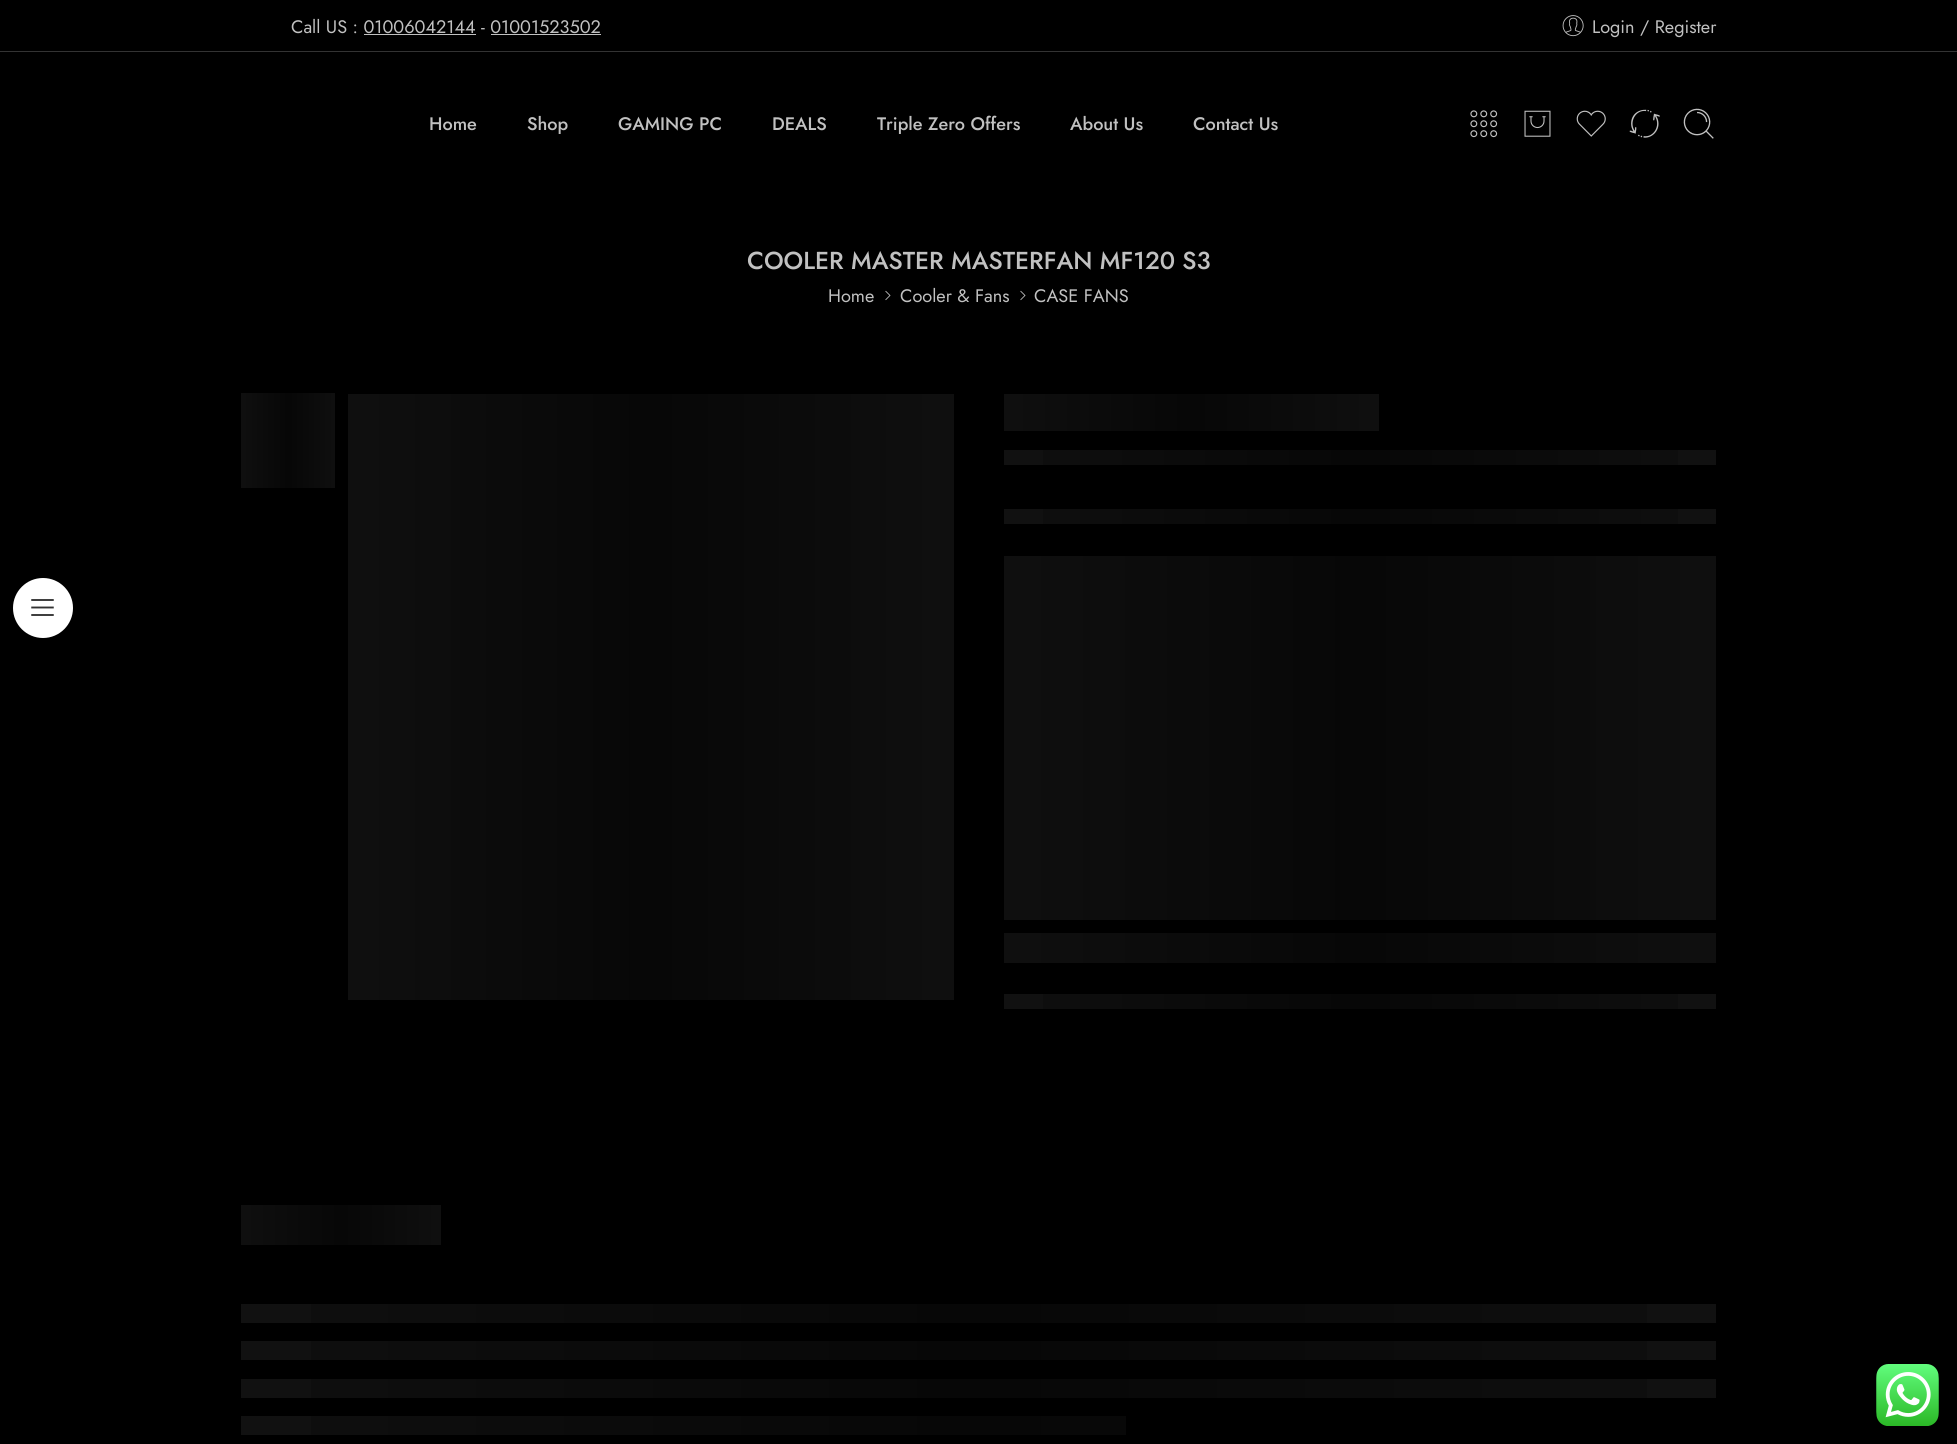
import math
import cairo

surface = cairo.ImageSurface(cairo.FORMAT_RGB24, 1957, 1444)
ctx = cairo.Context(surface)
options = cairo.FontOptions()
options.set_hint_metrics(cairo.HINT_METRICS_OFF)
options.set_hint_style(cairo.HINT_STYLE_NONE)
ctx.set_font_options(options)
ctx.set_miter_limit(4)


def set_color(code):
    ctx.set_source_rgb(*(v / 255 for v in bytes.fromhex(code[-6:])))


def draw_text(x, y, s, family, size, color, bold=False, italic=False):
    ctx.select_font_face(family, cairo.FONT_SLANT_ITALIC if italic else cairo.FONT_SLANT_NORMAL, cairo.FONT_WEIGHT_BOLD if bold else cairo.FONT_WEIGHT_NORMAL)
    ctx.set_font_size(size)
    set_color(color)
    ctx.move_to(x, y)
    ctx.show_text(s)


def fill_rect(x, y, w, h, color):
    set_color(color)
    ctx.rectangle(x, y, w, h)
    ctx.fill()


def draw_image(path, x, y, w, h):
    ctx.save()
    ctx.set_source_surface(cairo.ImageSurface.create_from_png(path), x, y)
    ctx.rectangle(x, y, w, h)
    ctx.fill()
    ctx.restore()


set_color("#000000")
ctx.paint()
fill_rect(0, 51, 1957, 1, "#333333")
draw_text(291, 33, "Call US : 01006042144 - 01001523502", "Jost", 18.1, "#c1c1c1")
fill_rect(364, 34, 112, 1, "#c1c1c1")
fill_rect(491, 34, 110, 1, "#c1c1c1")
draw_image("assets/img1.png", 1562, 15, 22, 22)
draw_text(1592, 33, "Login / Register", "Jost", 18.1, "#c1c1c1")
draw_text(429, 130, "Home", "Jost Medium", 18.1, "#c1c1c1")
draw_text(527, 130, "Shop", "Jost Medium", 18.1, "#c1c1c1")
draw_text(618, 130, "GAMING PC", "Jost Medium", 18.1, "#c1c1c1")
draw_text(772, 130, "DEALS", "Jost Medium", 18.1, "#c1c1c1")
draw_text(877, 130, "Triple Zero Offers", "Jost Medium", 18.1, "#c1c1c1")
draw_text(1070, 130, "About Us", "Jost Medium", 18.1, "#c1c1c1")
draw_text(1193, 130, "Contact Us", "Jost Medium", 18.1, "#c1c1c1")
draw_image("assets/img2.png", 1470, 110, 28, 28)
draw_image("assets/img3.png", 1524, 110, 27, 27)
draw_image("assets/img4.png", 1576, 110, 30, 27)
draw_image("assets/img5.png", 1629, 109, 31, 29)
draw_image("assets/img6.png", 1683, 108, 31, 31)
draw_text(747, 269, "COOLER MASTER MASTERFAN MF120 S3", "Jost Medium", 24.5, "#c1c1c1")
draw_text(828, 302, "Home", "Jost", 18.1, "#c1c1c1")
draw_image("assets/img7.png", 885, 290, 6, 11)
draw_text(900, 302, "Cooler & Fans", "Jost", 18.1, "#c1c1c1")
draw_image("assets/img7.png", 1020, 290, 6, 11)
draw_text(1034, 302, "CASE FANS", "Jost", 18.1, "#c1c1c1")
set_color("#ffffff")
ctx.new_path()
ctx.arc(43, 608, 30, 0, 2 * math.pi)
ctx.fill()
draw_image("assets/img8.png", 31, 599, 23, 17)
gradient = cairo.LinearGradient(194, 440, 383, 440)
gradient.add_color_stop_rgba(0.2, 0.067, 0.067, 0.067, 1)
gradient.add_color_stop_rgba(0.5, 0.027, 0.027, 0.027, 1)
gradient.add_color_stop_rgba(0.8, 0.067, 0.067, 0.067, 1)
ctx.set_source(gradient)
ctx.rectangle(241, 393, 94, 95)
ctx.fill()
gradient = cairo.LinearGradient(45, 697, 1256, 697)
gradient.add_color_stop_rgba(0.2, 0.067, 0.067, 0.067, 1)
gradient.add_color_stop_rgba(0.5, 0.027, 0.027, 0.027, 1)
gradient.add_color_stop_rgba(0.8, 0.067, 0.067, 0.067, 1)
ctx.set_source(gradient)
ctx.rectangle(348, 394, 606, 606)
ctx.fill()
gradient = cairo.LinearGradient(816, 413, 1566, 413)
gradient.add_color_stop_rgba(0.2, 0.067, 0.067, 0.067, 1)
gradient.add_color_stop_rgba(0.5, 0.027, 0.027, 0.027, 1)
gradient.add_color_stop_rgba(0.8, 0.067, 0.067, 0.067, 1)
ctx.set_source(gradient)
ctx.rectangle(1004, 394, 375, 37)
ctx.fill()
fill_rect(1004, 450, 712, 15, "#111111")
gradient = cairo.LinearGradient(648, 458, 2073, 457)
gradient.add_color_stop_rgba(0.2, 0, 0, 0, 0)
gradient.add_color_stop_rgba(0.5, 0, 0, 0, 0.6)
gradient.add_color_stop_rgba(0.8, 0, 0, 0, 0)
ctx.set_source(gradient)
ctx.rectangle(1043, 450, 635, 15)
ctx.fill()
fill_rect(1004, 509, 712, 15, "#111111")
gradient = cairo.LinearGradient(648, 516, 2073, 516)
gradient.add_color_stop_rgba(0.2, 0, 0, 0, 0)
gradient.add_color_stop_rgba(0.5, 0, 0, 0, 0.6)
gradient.add_color_stop_rgba(0.8, 0, 0, 0, 0)
ctx.set_source(gradient)
ctx.rectangle(1043, 509, 635, 15)
ctx.fill()
gradient = cairo.LinearGradient(648, 738, 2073, 738)
gradient.add_color_stop_rgba(0.2, 0.067, 0.067, 0.067, 1)
gradient.add_color_stop_rgba(0.5, 0.027, 0.027, 0.027, 1)
gradient.add_color_stop_rgba(0.8, 0.067, 0.067, 0.067, 1)
ctx.set_source(gradient)
ctx.rectangle(1004, 556, 712, 364)
ctx.fill()
gradient = cairo.LinearGradient(648, 948, 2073, 948)
gradient.add_color_stop_rgba(0.2, 0.067, 0.067, 0.067, 1)
gradient.add_color_stop_rgba(0.5, 0.027, 0.027, 0.027, 1)
gradient.add_color_stop_rgba(0.8, 0.067, 0.067, 0.067, 1)
ctx.set_source(gradient)
ctx.rectangle(1004, 933, 712, 30)
ctx.fill()
fill_rect(1004, 994, 712, 15, "#111111")
gradient = cairo.LinearGradient(648, 1001, 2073, 1001)
gradient.add_color_stop_rgba(0.2, 0, 0, 0, 0)
gradient.add_color_stop_rgba(0.5, 0, 0, 0, 0.6)
gradient.add_color_stop_rgba(0.8, 0, 0, 0, 0)
ctx.set_source(gradient)
ctx.rectangle(1043, 994, 635, 15)
ctx.fill()
gradient = cairo.LinearGradient(141, 1225, 541, 1225)
gradient.add_color_stop_rgba(0.2, 0.067, 0.067, 0.067, 1)
gradient.add_color_stop_rgba(0.5, 0.027, 0.027, 0.027, 1)
gradient.add_color_stop_rgba(0.8, 0.067, 0.067, 0.067, 1)
ctx.set_source(gradient)
ctx.rectangle(241, 1205, 200, 40)
ctx.fill()
fill_rect(241, 1416, 885, 19, "#111111")
fill_rect(241, 1379, 1475, 19, "#111111")
fill_rect(241, 1341, 1475, 19, "#111111")
fill_rect(241, 1304, 1475, 19, "#111111")
gradient = cairo.LinearGradient(-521, 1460, 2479, 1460)
gradient.add_color_stop_rgba(0.2, 0, 0, 0, 0)
gradient.add_color_stop_rgba(0.5, 0, 0, 0, 0.6)
gradient.add_color_stop_rgba(0.8, 0, 0, 0, 0)
ctx.set_source(gradient)
ctx.rectangle(311, 1304, 1336, 131)
ctx.fill()
draw_image("assets/img9.png", 1876, 1364, 63, 62)
surface.write_to_png("output.png")
